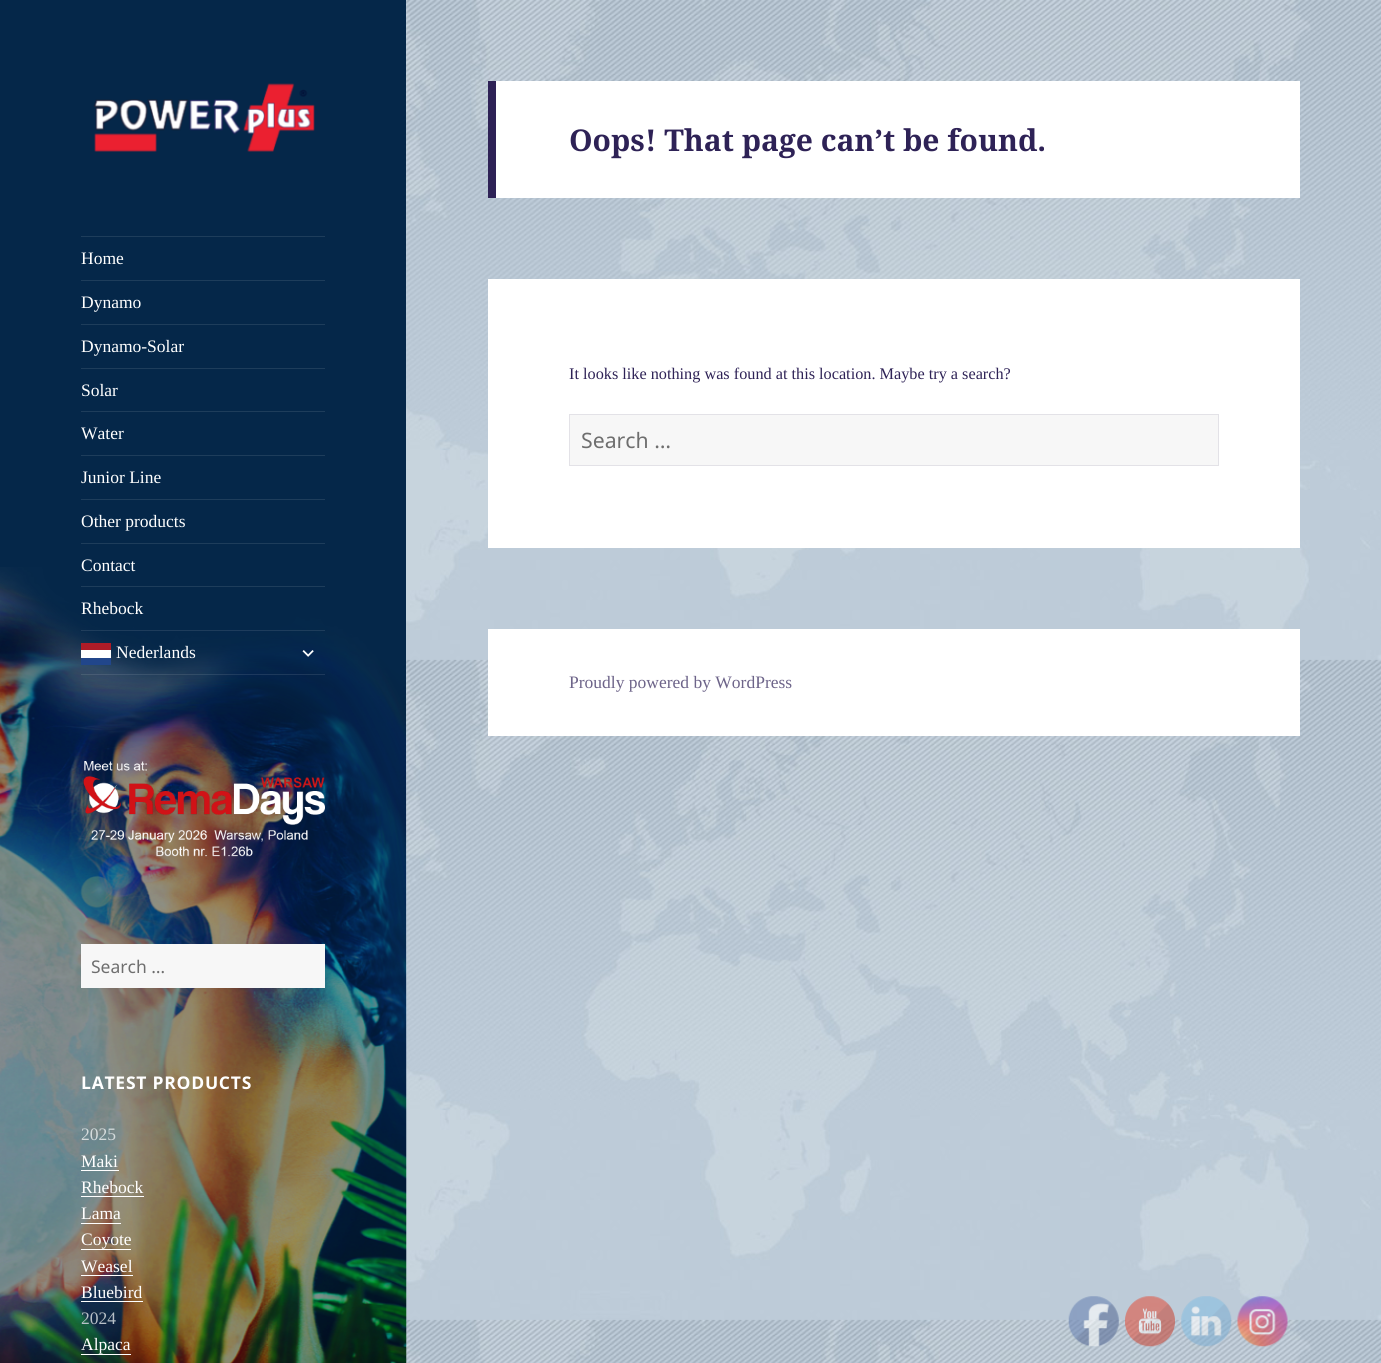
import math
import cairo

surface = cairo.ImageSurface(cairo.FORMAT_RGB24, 1381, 1363)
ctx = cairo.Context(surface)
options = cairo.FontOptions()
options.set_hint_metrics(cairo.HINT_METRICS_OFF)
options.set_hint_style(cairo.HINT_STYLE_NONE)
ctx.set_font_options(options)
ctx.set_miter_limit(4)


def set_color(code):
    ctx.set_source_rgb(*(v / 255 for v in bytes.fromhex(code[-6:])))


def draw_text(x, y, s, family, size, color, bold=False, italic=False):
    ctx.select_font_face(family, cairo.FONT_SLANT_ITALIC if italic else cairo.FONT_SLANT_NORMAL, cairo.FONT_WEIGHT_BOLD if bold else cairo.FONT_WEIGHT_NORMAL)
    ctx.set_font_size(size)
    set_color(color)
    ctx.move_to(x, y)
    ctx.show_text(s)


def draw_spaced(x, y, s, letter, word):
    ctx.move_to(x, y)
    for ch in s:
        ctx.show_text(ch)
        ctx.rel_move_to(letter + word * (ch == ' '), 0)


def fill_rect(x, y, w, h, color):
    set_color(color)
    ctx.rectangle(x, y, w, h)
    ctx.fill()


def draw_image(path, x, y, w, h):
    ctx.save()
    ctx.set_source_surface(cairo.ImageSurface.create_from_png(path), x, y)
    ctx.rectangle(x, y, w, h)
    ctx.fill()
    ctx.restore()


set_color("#ffffff")
ctx.paint()
draw_image("assets/img1.png", 406, 0, 975, 1363)
fill_rect(0, 0, 406, 1363, "#052749")
draw_image("assets/img2.png", 0, 567, 407, 796)
draw_image("assets/img3.png", 93, 83, 222, 69)
fill_rect(81, 236, 244, 1, "#1e3d5b")
ctx.set_source_rgba(1, 1, 1, 0.1)
ctx.rectangle(81, 674, 244, 1)
ctx.fill()
draw_text(81, 264, "Home", "Liberation Serif", 17.5, "#ffffff")
fill_rect(81, 280, 244, 1, "#1e3d5b")
draw_text(81, 308, "Dynamo", "Liberation Serif", 17.5, "#ffffff")
fill_rect(81, 324, 244, 1, "#1e3d5b")
draw_text(81, 352, "Dynamo-Solar", "Liberation Serif", 17.5, "#ffffff")
fill_rect(81, 368, 244, 1, "#1e3d5b")
draw_text(81, 396, "Solar", "Liberation Serif", 17.5, "#ffffff")
fill_rect(81, 411, 244, 1, "#1e3d5b")
draw_text(81, 439, "Water", "Liberation Serif", 17.5, "#ffffff")
fill_rect(81, 455, 244, 1, "#1e3d5b")
draw_text(81, 483, "Junior Line", "Liberation Serif", 17.5, "#ffffff")
fill_rect(81, 499, 244, 1, "#1e3d5b")
draw_text(81, 527, "Other products", "Liberation Serif", 17.5, "#ffffff")
fill_rect(81, 543, 244, 1, "#1e3d5b")
draw_text(81, 571, "Contact", "Liberation Serif", 17.5, "#ffffff")
fill_rect(81, 586, 244, 1, "#1e3d5b")
draw_text(81, 614, "Rhebock", "Liberation Serif", 17.5, "#ffffff")
ctx.set_source_rgba(1, 1, 1, 0.1)
ctx.rectangle(81, 630, 244, 1)
ctx.fill()
fill_rect(81, 643, 30, 7, "#ae1c28")
draw_text(116, 658, "Nederlands", "Liberation Serif", 17.5, "#ffffff")
fill_rect(81, 650, 30, 8, "#ffffff")
fill_rect(81, 658, 30, 7, "#21468b")
draw_image("assets/img4.png", 302, 650, 12, 7)
draw_image("assets/img5.png", 83, 761, 242, 96)
fill_rect(81, 944, 244, 44, "#f7f7f7")
draw_text(91, 973, "Search …", "Noto Sans", 17.5, "#6e6e6e")
ctx.select_font_face("Noto Sans", cairo.FONT_SLANT_NORMAL, cairo.FONT_WEIGHT_BOLD)
set_color("#ffffff")
draw_spaced(81, 1089, "LATEST PRODUCTS", 0.75, 0)
draw_text(81, 1140, "2025", "Liberation Serif", 17.5, "#d5dbdc")
draw_text(81, 1167, "Maki", "Liberation Serif", 17.5, "#ffffff")
fill_rect(81, 1170, 38, 1, "#ffffff")
draw_text(81, 1193, "Rhebock", "Liberation Serif", 17.5, "#ffffff")
fill_rect(81, 1196, 63, 1, "#ffffff")
draw_text(81, 1219, "Lama", "Liberation Serif", 17.5, "#ffffff")
fill_rect(81, 1223, 40, 1, "#ffffff")
draw_text(81, 1245, "Coyote", "Liberation Serif", 17.5, "#ffffff")
fill_rect(81, 1249, 50, 1, "#ffffff")
draw_text(81, 1272, "Weasel", "Liberation Serif", 17.5, "#ffffff")
fill_rect(81, 1275, 52, 1, "#ffffff")
draw_text(81, 1298, "Bluebird", "Liberation Serif", 17.5, "#ffffff")
fill_rect(81, 1301, 62, 1, "#ffffff")
draw_text(81, 1324, "2024", "Liberation Serif", 17.5, "#b7c0c7")
draw_text(81, 1350, "Alpaca", "Liberation Serif", 17.5, "#ffffff")
fill_rect(81, 1354, 50, 1, "#ffffff")
fill_rect(496, 81, 804, 117, "#ffffff")
fill_rect(488, 81, 8, 117, "#2e2256")
draw_text(569, 151, "Oops! That page can’t be found.", "Noto Serif", 30, "#2e2256", bold=True)
fill_rect(488, 279, 812, 269, "#ffffff")
draw_text(569, 379, "It looks like nothing was found at this location. Maybe try a search?", "Liberation Serif", 16.25, "#2e2256")
set_color("#f7f7f7")
ctx.rectangle(569.5, 414.5, 649, 51)
ctx.fill_preserve()
set_color("#e3e2e7")
ctx.set_line_width(1)
ctx.stroke()
draw_text(581, 448, "Search …", "Noto Sans", 21.25, "#6e6e6e")
fill_rect(488, 629, 812, 107, "#ffffff")
draw_text(569, 688, "Proudly powered by WordPress", "Liberation Serif", 17.5, "#6d6489")
draw_image("assets/img6.png", 1068, 1296, 51, 51)
draw_image("assets/img7.png", 1125, 1296, 50, 51)
draw_image("assets/img8.png", 1181, 1296, 51, 51)
draw_image("assets/img9.png", 1237, 1296, 51, 51)
surface.write_to_png("output.png")
